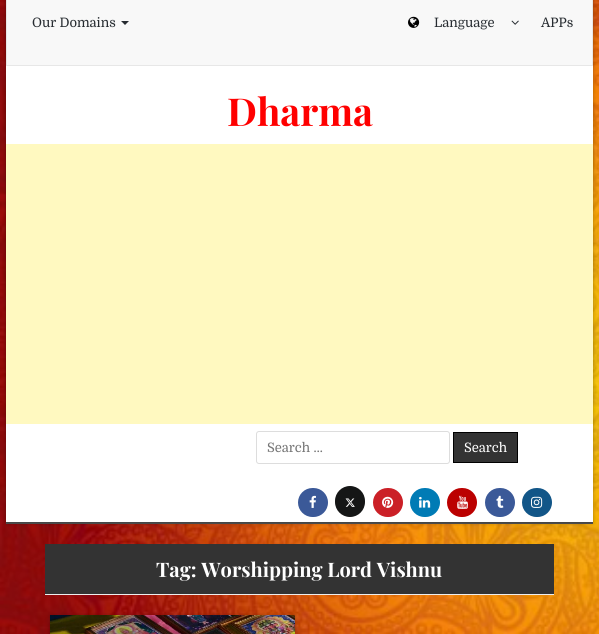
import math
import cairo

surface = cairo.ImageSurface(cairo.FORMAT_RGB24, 599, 634)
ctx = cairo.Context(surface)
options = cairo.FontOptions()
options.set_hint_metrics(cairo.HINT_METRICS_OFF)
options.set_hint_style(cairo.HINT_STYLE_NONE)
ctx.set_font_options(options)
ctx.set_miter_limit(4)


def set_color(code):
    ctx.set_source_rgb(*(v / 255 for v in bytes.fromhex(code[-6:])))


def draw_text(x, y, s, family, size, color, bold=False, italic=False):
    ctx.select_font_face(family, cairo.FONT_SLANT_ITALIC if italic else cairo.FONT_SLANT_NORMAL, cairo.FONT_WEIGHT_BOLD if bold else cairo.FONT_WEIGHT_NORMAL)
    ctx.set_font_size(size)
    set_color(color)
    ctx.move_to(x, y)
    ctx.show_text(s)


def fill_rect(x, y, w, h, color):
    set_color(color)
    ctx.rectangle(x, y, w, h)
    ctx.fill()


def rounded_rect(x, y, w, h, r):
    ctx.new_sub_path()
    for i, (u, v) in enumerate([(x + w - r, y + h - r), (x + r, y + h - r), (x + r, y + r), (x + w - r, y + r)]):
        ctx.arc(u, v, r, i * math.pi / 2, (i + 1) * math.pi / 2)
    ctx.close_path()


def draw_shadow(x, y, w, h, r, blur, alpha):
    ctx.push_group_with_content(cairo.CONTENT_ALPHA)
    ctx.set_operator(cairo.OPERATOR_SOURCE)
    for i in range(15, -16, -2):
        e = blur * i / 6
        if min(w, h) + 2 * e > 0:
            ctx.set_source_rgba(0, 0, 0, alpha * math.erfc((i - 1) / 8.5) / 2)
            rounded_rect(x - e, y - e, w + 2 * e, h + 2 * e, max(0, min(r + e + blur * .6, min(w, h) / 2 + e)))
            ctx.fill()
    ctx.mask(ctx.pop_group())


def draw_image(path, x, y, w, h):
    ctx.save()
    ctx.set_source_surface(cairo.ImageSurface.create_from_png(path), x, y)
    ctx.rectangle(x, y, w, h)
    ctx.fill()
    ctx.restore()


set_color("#ffffff")
ctx.paint()
draw_image("assets/img1.png", 0, 0, 599, 634)
fill_rect(6, 522, 587, 2, "#555555")
set_color("#000000")
draw_shadow(6, -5, 587, 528, 0, 2, 0.3)
fill_rect(6, 66, 587, 456, "#ffffff")
set_color("#f8f8f8")
ctx.rectangle(6.5, -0.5, 586, 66)
ctx.fill_preserve()
set_color("#e7e7e7")
ctx.set_line_width(1)
ctx.stroke()
draw_text(32, 27, "Our Domains", "Domine", 13, "#262b30")
ctx.new_path()
ctx.move_to(121, 21)
ctx.line_to(129, 21)
ctx.line_to(125, 25)
ctx.close_path()
ctx.fill()
draw_image("assets/img2.png", 408, 16, 12, 12)
draw_text(434, 27, "Language", "Domine", 13, "#262b30")
draw_image("assets/img3.png", 511, 20, 8, 5)
draw_text(541, 27, "APPs", "Domine", 13, "#262b30")
draw_text(227, 126, "Dharma", "Playfair Display", 38.5, "#ff0000", bold=True)
fill_rect(6, 144, 587, 280, "#fff9c0")
rounded_rect(256.5, 431.5, 193, 32, 2.5)
set_color("#dddddd")
ctx.stroke()
draw_text(267, 452, "Search …", "Domine", 13, "#757575")
set_color("#333333")
ctx.rectangle(453.5, 432.5, 64, 30)
ctx.fill_preserve()
set_color("#000000")
ctx.stroke()
draw_text(464, 452, "Search", "Domine", 13, "#ffffff")
set_color("#3b5998")
rounded_rect(298, 488, 30, 29, 14.5)
ctx.fill()
draw_image("assets/img4.png", 309, 495, 7, 13)
set_color("#151616")
rounded_rect(335, 486, 30, 31, 15)
ctx.fill()
draw_image("assets/img5.png", 345, 498, 10, 9)
set_color("#cb2027")
rounded_rect(373, 488, 30, 29, 14.5)
ctx.fill()
draw_image("assets/img6.png", 382, 496, 12, 12)
set_color("#007bb5")
rounded_rect(410, 488, 30, 29, 14.5)
ctx.fill()
draw_image("assets/img7.png", 419, 496, 12, 12)
set_color("#bb0000")
rounded_rect(447, 488, 30, 29, 14.5)
ctx.fill()
draw_image("assets/img8.png", 457, 495, 11, 14)
set_color("#3b5998")
rounded_rect(485, 488, 30, 29, 14.5)
ctx.fill()
draw_image("assets/img9.png", 496, 495, 8, 13)
set_color("#125688")
rounded_rect(522, 488, 30, 29, 14.5)
ctx.fill()
draw_image("assets/img10.png", 531, 496, 12, 12)
fill_rect(45, 544, 509, 50, "#333333")
fill_rect(45, 594, 509, 1, "#eeeeee")
draw_text(156, 577, "Tag: Worshipping Lord Vishnu", "Playfair Display", 20, "#ffffff", bold=True)
set_color("#000000")
draw_shadow(50, 616, 245, 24, 0, 2, 0.3)
draw_image("assets/img11.png", 50, 615, 245, 19)
surface.write_to_png("output.png")
